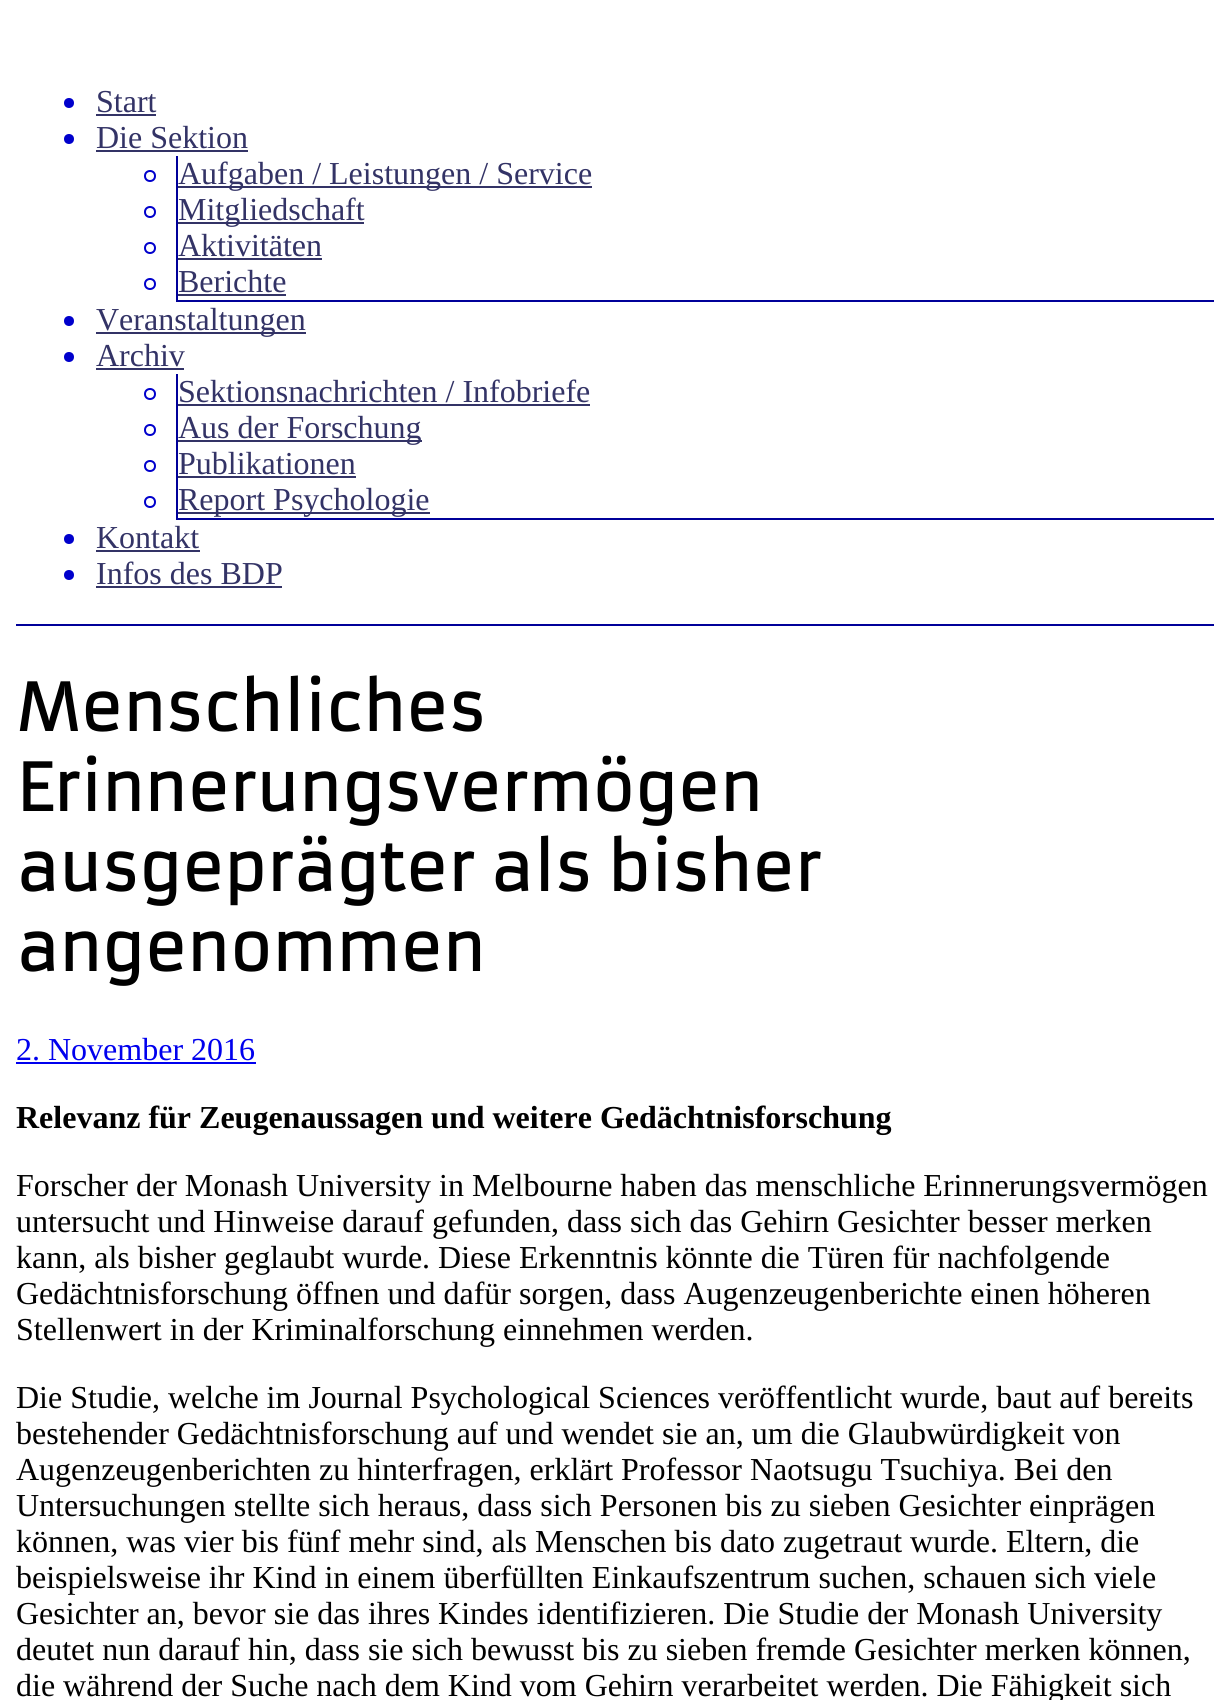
import math
import cairo

surface = cairo.ImageSurface(cairo.FORMAT_RGB24, 1229, 1700)
ctx = cairo.Context(surface)
options = cairo.FontOptions()
options.set_hint_metrics(cairo.HINT_METRICS_OFF)
options.set_hint_style(cairo.HINT_STYLE_NONE)
ctx.set_font_options(options)
ctx.set_miter_limit(4)


def set_color(code):
    ctx.set_source_rgb(*(v / 255 for v in bytes.fromhex(code[-6:])))


def draw_text(x, y, s, family, size, color, bold=False, italic=False):
    ctx.select_font_face(family, cairo.FONT_SLANT_ITALIC if italic else cairo.FONT_SLANT_NORMAL, cairo.FONT_WEIGHT_BOLD if bold else cairo.FONT_WEIGHT_NORMAL)
    ctx.set_font_size(size)
    set_color(color)
    ctx.move_to(x, y)
    ctx.show_text(s)


def fill_rect(x, y, w, h, color):
    set_color(color)
    ctx.rectangle(x, y, w, h)
    ctx.fill()


set_color("#ffffff")
ctx.paint()
fill_rect(16, 624, 1198, 2, "#000099")
set_color("#0000cc")
ctx.arc(69, 103, 5, 0, 2 * math.pi)
ctx.fill()
draw_text(96, 112, "Start", "Liberation Serif", 32, "#333366")
fill_rect(96, 114, 60, 2, "#333366")
set_color("#0000cc")
ctx.new_path()
ctx.arc(69, 139, 5, 0, 2 * math.pi)
ctx.fill()
draw_text(96, 148, "Die Sektion", "Liberation Serif", 32, "#333366")
fill_rect(96, 150, 152, 2, "#333366")
fill_rect(176, 156, 2, 108, "#000099")
ctx.new_path()
ctx.arc(150, 176, 5, 0, 2 * math.pi)
set_color("#0000cc")
ctx.stroke()
fill_rect(178, 186, 414, 2, "#333366")
draw_text(178, 184, "Aufgaben / Leistungen / Service", "Liberation Serif", 32, "#333366")
ctx.new_path()
ctx.arc(150, 212, 5, 0, 2 * math.pi)
set_color("#0000cc")
ctx.stroke()
fill_rect(178, 222, 186, 2, "#333366")
draw_text(178, 220, "Mitgliedschaft", "Liberation Serif", 32, "#333366")
ctx.new_path()
ctx.arc(150, 248, 5, 0, 2 * math.pi)
set_color("#0000cc")
ctx.stroke()
draw_text(178, 256, "Aktivitäten", "Liberation Serif", 32, "#333366")
fill_rect(178, 258, 144, 2, "#333366")
fill_rect(176, 300, 1038, 2, "#000099")
fill_rect(176, 264, 2, 38, "#000099")
ctx.new_path()
ctx.arc(150, 284, 5, 0, 2 * math.pi)
set_color("#0000cc")
ctx.stroke()
draw_text(178, 292, "Berichte", "Liberation Serif", 32, "#333366")
fill_rect(178, 294, 108, 2, "#333366")
set_color("#0000cc")
ctx.new_path()
ctx.arc(69, 321, 5, 0, 2 * math.pi)
ctx.fill()
fill_rect(96, 332, 210, 2, "#333366")
draw_text(96, 330, "Veranstaltungen", "Liberation Serif", 32, "#333366")
set_color("#0000cc")
ctx.new_path()
ctx.arc(69, 357, 5, 0, 2 * math.pi)
ctx.fill()
draw_text(96, 366, "Archiv", "Liberation Serif", 32, "#333366")
fill_rect(96, 368, 88, 2, "#333366")
fill_rect(176, 374, 2, 108, "#000099")
ctx.new_path()
ctx.arc(150, 394, 5, 0, 2 * math.pi)
set_color("#0000cc")
ctx.stroke()
draw_text(178, 402, "Sektionsnachrichten / Infobriefe", "Liberation Serif", 32, "#333366")
fill_rect(178, 404, 412, 2, "#333366")
ctx.new_path()
ctx.arc(150, 430, 5, 0, 2 * math.pi)
set_color("#0000cc")
ctx.stroke()
fill_rect(178, 440, 244, 2, "#333366")
draw_text(178, 438, "Aus der Forschung", "Liberation Serif", 32, "#333366")
ctx.new_path()
ctx.arc(150, 466, 5, 0, 2 * math.pi)
set_color("#0000cc")
ctx.stroke()
draw_text(178, 474, "Publikationen", "Liberation Serif", 32, "#333366")
fill_rect(178, 476, 178, 2, "#333366")
fill_rect(176, 518, 1038, 2, "#000099")
fill_rect(176, 482, 2, 38, "#000099")
ctx.new_path()
ctx.arc(150, 502, 5, 0, 2 * math.pi)
set_color("#0000cc")
ctx.stroke()
fill_rect(178, 512, 252, 2, "#333366")
draw_text(178, 510, "Report Psychologie", "Liberation Serif", 32, "#333366")
set_color("#0000cc")
ctx.new_path()
ctx.arc(69, 539, 5, 0, 2 * math.pi)
ctx.fill()
draw_text(96, 548, "Kontakt", "Liberation Serif", 32, "#333366")
fill_rect(96, 550, 104, 2, "#333366")
set_color("#0000cc")
ctx.new_path()
ctx.arc(69, 575, 5, 0, 2 * math.pi)
ctx.fill()
draw_text(96, 584, "Infos des BDP", "Liberation Serif", 32, "#333366")
fill_rect(96, 586, 186, 2, "#333366")
draw_text(16, 731, "Menschliches", "Armata", 64, "#000000", bold=True)
draw_text(16, 811, "Erinnerungsvermögen", "Armata", 64, "#000000", bold=True)
draw_text(16, 891, "ausgeprägter als bisher", "Armata", 64, "#000000", bold=True)
draw_text(16, 971, "angenommen", "Armata", 64, "#000000", bold=True)
draw_text(16, 1060, "2. November 2016", "Liberation Serif", 32, "#0000ee")
fill_rect(16, 1062, 240, 2, "#0000ee")
draw_text(16, 1128, "Relevanz für Zeugenaussagen und weitere Gedächtnisforschung", "Liberation Serif", 32, "#000000", bold=True)
draw_text(16, 1196, "Forscher der Monash University in Melbourne haben das menschliche Erinnerungsvermögen", "Liberation Serif", 32, "#000000")
draw_text(16, 1232, "untersucht und Hinweise darauf gefunden, dass sich das Gehirn Gesichter besser merken", "Liberation Serif", 32, "#000000")
draw_text(16, 1268, "kann, als bisher geglaubt wurde. Diese Erkenntnis könnte die Türen für nachfolgende", "Liberation Serif", 32, "#000000")
draw_text(16, 1304, "Gedächtnisforschung öffnen und dafür sorgen, dass Augenzeugenberichte einen höheren", "Liberation Serif", 32, "#000000")
draw_text(16, 1340, "Stellenwert in der Kriminalforschung einnehmen werden.", "Liberation Serif", 32, "#000000")
draw_text(16, 1408, "Die Studie, welche im Journal Psychological Sciences veröffentlicht wurde, baut auf bereits", "Liberation Serif", 32, "#000000")
draw_text(16, 1444, "bestehender Gedächtnisforschung auf und wendet sie an, um die Glaubwürdigkeit von", "Liberation Serif", 32, "#000000")
draw_text(16, 1480, "Augenzeugenberichten zu hinterfragen, erklärt Professor Naotsugu Tsuchiya. Bei den", "Liberation Serif", 32, "#000000")
draw_text(16, 1516, "Untersuchungen stellte sich heraus, dass sich Personen bis zu sieben Gesichter einprägen", "Liberation Serif", 32, "#000000")
draw_text(16, 1552, "können, was vier bis fünf mehr sind, als Menschen bis dato zugetraut wurde. Eltern, die", "Liberation Serif", 32, "#000000")
draw_text(16, 1588, "beispielsweise ihr Kind in einem überfüllten Einkaufszentrum suchen, schauen sich viele", "Liberation Serif", 32, "#000000")
draw_text(16, 1624, "Gesichter an, bevor sie das ihres Kindes identifizieren. Die Studie der Monash University", "Liberation Serif", 32, "#000000")
draw_text(16, 1660, "deutet nun darauf hin, dass sie sich bewusst bis zu sieben fremde Gesichter merken können,", "Liberation Serif", 32, "#000000")
draw_text(16, 1696, "die während der Suche nach dem Kind vom Gehirn verarbeitet werden. Die Fähigkeit sich", "Liberation Serif", 32, "#000000")
surface.write_to_png("output.png")
